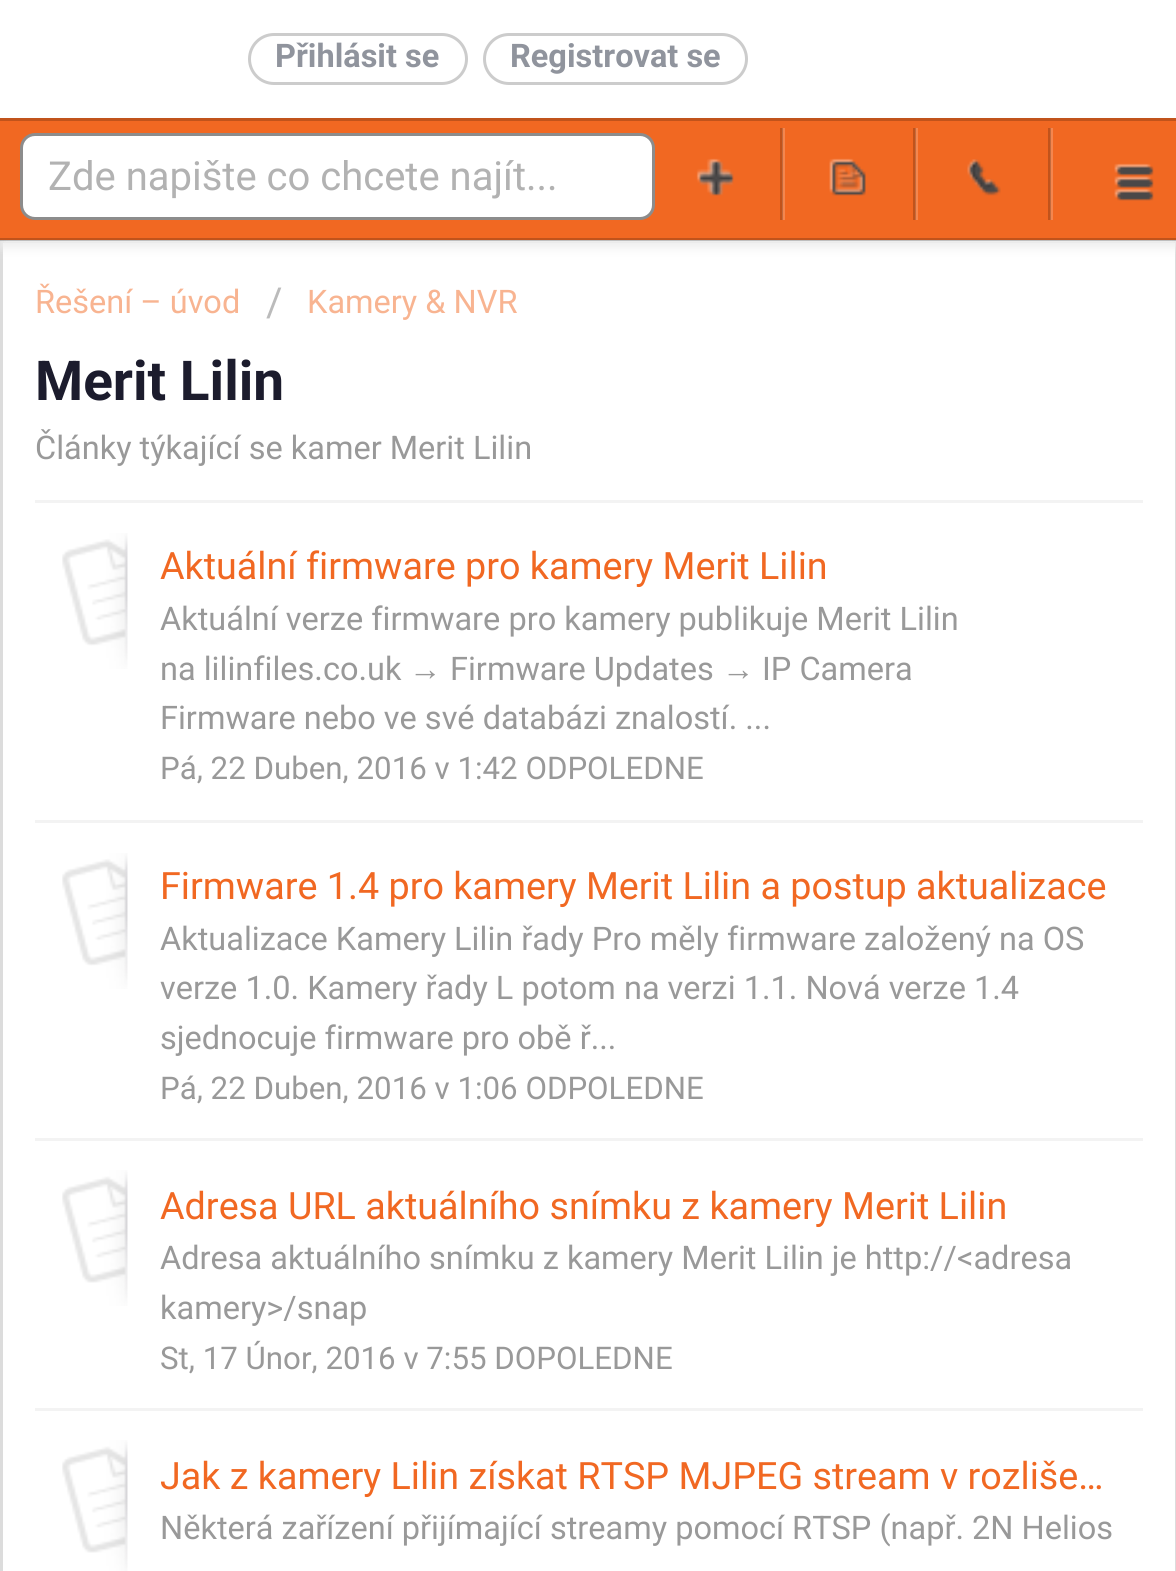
import math
import cairo

surface = cairo.ImageSurface(cairo.FORMAT_RGB24, 1176, 1571)
ctx = cairo.Context(surface)
options = cairo.FontOptions()
options.set_hint_metrics(cairo.HINT_METRICS_OFF)
options.set_hint_style(cairo.HINT_STYLE_NONE)
ctx.set_font_options(options)
ctx.set_miter_limit(4)


def set_color(code):
    ctx.set_source_rgb(*(v / 255 for v in bytes.fromhex(code[-6:])))


def draw_text(x, y, s, family, size, color, bold=False, italic=False):
    ctx.select_font_face(family, cairo.FONT_SLANT_ITALIC if italic else cairo.FONT_SLANT_NORMAL, cairo.FONT_WEIGHT_BOLD if bold else cairo.FONT_WEIGHT_NORMAL)
    ctx.set_font_size(size)
    set_color(color)
    ctx.move_to(x, y)
    ctx.show_text(s)


def fill_rect(x, y, w, h, color):
    set_color(color)
    ctx.rectangle(x, y, w, h)
    ctx.fill()


def rounded_rect(x, y, w, h, r):
    ctx.new_sub_path()
    for i, (u, v) in enumerate([(x + w - r, y + h - r), (x + r, y + h - r), (x + r, y + r), (x + w - r, y + r)]):
        ctx.arc(u, v, r, i * math.pi / 2, (i + 1) * math.pi / 2)
    ctx.close_path()


def draw_shadow(x, y, w, h, r, blur, alpha):
    ctx.push_group_with_content(cairo.CONTENT_ALPHA)
    ctx.set_operator(cairo.OPERATOR_SOURCE)
    for i in range(15, -16, -2):
        e = blur * i / 6
        if min(w, h) + 2 * e > 0:
            ctx.set_source_rgba(0, 0, 0, alpha * math.erfc((i - 1) / 8.5) / 2)
            rounded_rect(x - e, y - e, w + 2 * e, h + 2 * e, max(0, min(r + e + blur * .6, min(w, h) / 2 + e)))
            ctx.fill()
    ctx.mask(ctx.pop_group())


def draw_image(path, x, y, w, h):
    ctx.save()
    ctx.set_source_surface(cairo.ImageSurface.create_from_png(path), x, y)
    ctx.rectangle(x, y, w, h)
    ctx.fill()
    ctx.restore()


set_color("#ffffff")
ctx.paint()
rounded_rect(249.5, 34.5, 217, 49, 24.5)
set_color("#cccccc")
ctx.set_line_width(3)
ctx.stroke()
draw_text(275, 67, "Přihlásit se", "Roboto", 32.5, "#90949d", bold=True)
rounded_rect(484.5, 34.5, 262, 49, 24.5)
set_color("#cccccc")
ctx.stroke()
draw_text(510, 67, "Registrovat se", "Roboto", 32.5, "#90949d", bold=True)
ctx.rectangle(1.5, 241.5, 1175, 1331)
set_color("#dcdcdc")
ctx.stroke()
set_color("#eeeeee")
draw_shadow(0, 125, 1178, 123, 0, 5, 1)
fill_rect(0, 121, 1176, 119, "#f16822")
fill_rect(0, 118, 1176, 3, "#c1531b")
ctx.set_source_rgba(0, 0, 0, 0.2)
ctx.rectangle(0, 238, 1176, 3)
ctx.fill()
draw_image("assets/img1.png", 1114, 163, 40, 38)
set_color("#ffffff")
rounded_rect(21.5, 134.5, 632, 84, 13.5)
ctx.fill_preserve()
set_color("#8c8c8c")
ctx.stroke()
draw_text(48, 190, "Zde napište co chcete najít...", "Roboto", 40, "#b2b2b2")
fill_rect(782, 128, 3, 92, "#f4864e")
ctx.set_source_rgba(0, 0, 0, 0.2)
ctx.rectangle(780, 128, 3, 92)
ctx.fill()
draw_image("assets/img2.png", 696, 158, 38, 38)
fill_rect(915, 128, 3, 92, "#f4864e")
ctx.set_source_rgba(0, 0, 0, 0.2)
ctx.rectangle(913, 128, 3, 92)
ctx.fill()
draw_image("assets/img3.png", 829, 158, 37, 38)
fill_rect(1050, 128, 3, 92, "#f4864e")
ctx.set_source_rgba(0, 0, 0, 0.2)
ctx.rectangle(1048, 128, 3, 92)
ctx.fill()
draw_image("assets/img4.png", 967, 159, 34, 37)
draw_text(35, 313, "Řešení – úvod", "Roboto", 32.5, "#f8b491")
draw_text(266, 316, "/", "Roboto", 40, "#bbbbbb")
draw_text(307, 313, "Kamery & NVR", "Roboto", 32.5, "#f8b491")
draw_text(35, 400, "Merit Lilin", "Roboto", 55, "#1c1c2d", bold=True)
draw_text(35, 459, "Články týkající se kamer Merit Lilin", "Roboto", 32.5, "#999999")
fill_rect(35, 500, 1108, 3, "#f3f3f3")
draw_image("assets/img5.png", 62, 533, 66, 136)
draw_text(160, 579, "Aktuální firmware pro kamery Merit Lilin", "Roboto", 37.7, "#f16822")
draw_text(160, 630, "Aktuální verze firmware pro kamery publikuje Merit Lilin", "Roboto", 32.5, "#999999")
draw_text(160, 680, "na lilinfiles.co.uk", "Roboto", 32.5, "#999999")
draw_text(409, 680, "→", "Liberation Sans", 32.5, "#999999")
draw_text(450, 680, "Firmware Updates", "Roboto", 32.5, "#999999")
draw_text(722, 680, "→", "Liberation Sans", 32.5, "#999999")
draw_text(762, 680, "IP Camera", "Roboto", 32.5, "#999999")
draw_text(160, 729, "Firmware nebo ve své databázi znalostí. ...", "Roboto", 32.5, "#999999")
draw_text(160, 779, "Pá, 22 Duben, 2016 v 1:42 ODPOLEDNE", "Roboto", 31.25, "#999999")
fill_rect(35, 820, 1108, 3, "#f3f3f3")
draw_image("assets/img6.png", 62, 853, 66, 136)
draw_text(160, 899, "Firmware 1.4 pro kamery Merit Lilin a postup aktualizace", "Roboto", 37.7, "#f16822")
draw_text(160, 950, "Aktualizace Kamery Lilin řady Pro měly firmware založený na OS", "Roboto", 32.5, "#999999")
draw_text(160, 999, "verze 1.0. Kamery řady L potom na verzi 1.1. Nová verze 1.4", "Roboto", 32.5, "#999999")
draw_text(160, 1049, "sjednocuje firmware pro obě ř...", "Roboto", 32.5, "#999999")
draw_text(160, 1099, "Pá, 22 Duben, 2016 v 1:06 ODPOLEDNE", "Roboto", 31.25, "#999999")
fill_rect(35, 1138, 1108, 3, "#f3f3f3")
draw_image("assets/img7.png", 62, 1170, 66, 136)
draw_text(160, 1219, "Adresa URL aktuálního snímku z kamery Merit Lilin", "Roboto", 37.7, "#f16822")
draw_text(160, 1269, "Adresa aktuálního snímku z kamery Merit Lilin je http://<adresa", "Roboto", 32.5, "#999999")
draw_text(160, 1319, "kamery>/snap", "Roboto", 32.5, "#999999")
draw_text(160, 1369, "St, 17 Únor, 2016 v 7:55 DOPOLEDNE", "Roboto", 31.25, "#999999")
fill_rect(35, 1408, 1108, 3, "#f3f3f3")
draw_image("assets/img8.png", 62, 1440, 66, 131)
draw_text(160, 1489, "Jak z kamery Lilin získat RTSP MJPEG stream v rozliše…", "Roboto", 37.7, "#f16822")
draw_text(160, 1539, "Některá zařízení přijímající streamy pomocí RTSP (např. 2N Helios", "Roboto", 32.5, "#999999")
surface.write_to_png("output.png")
